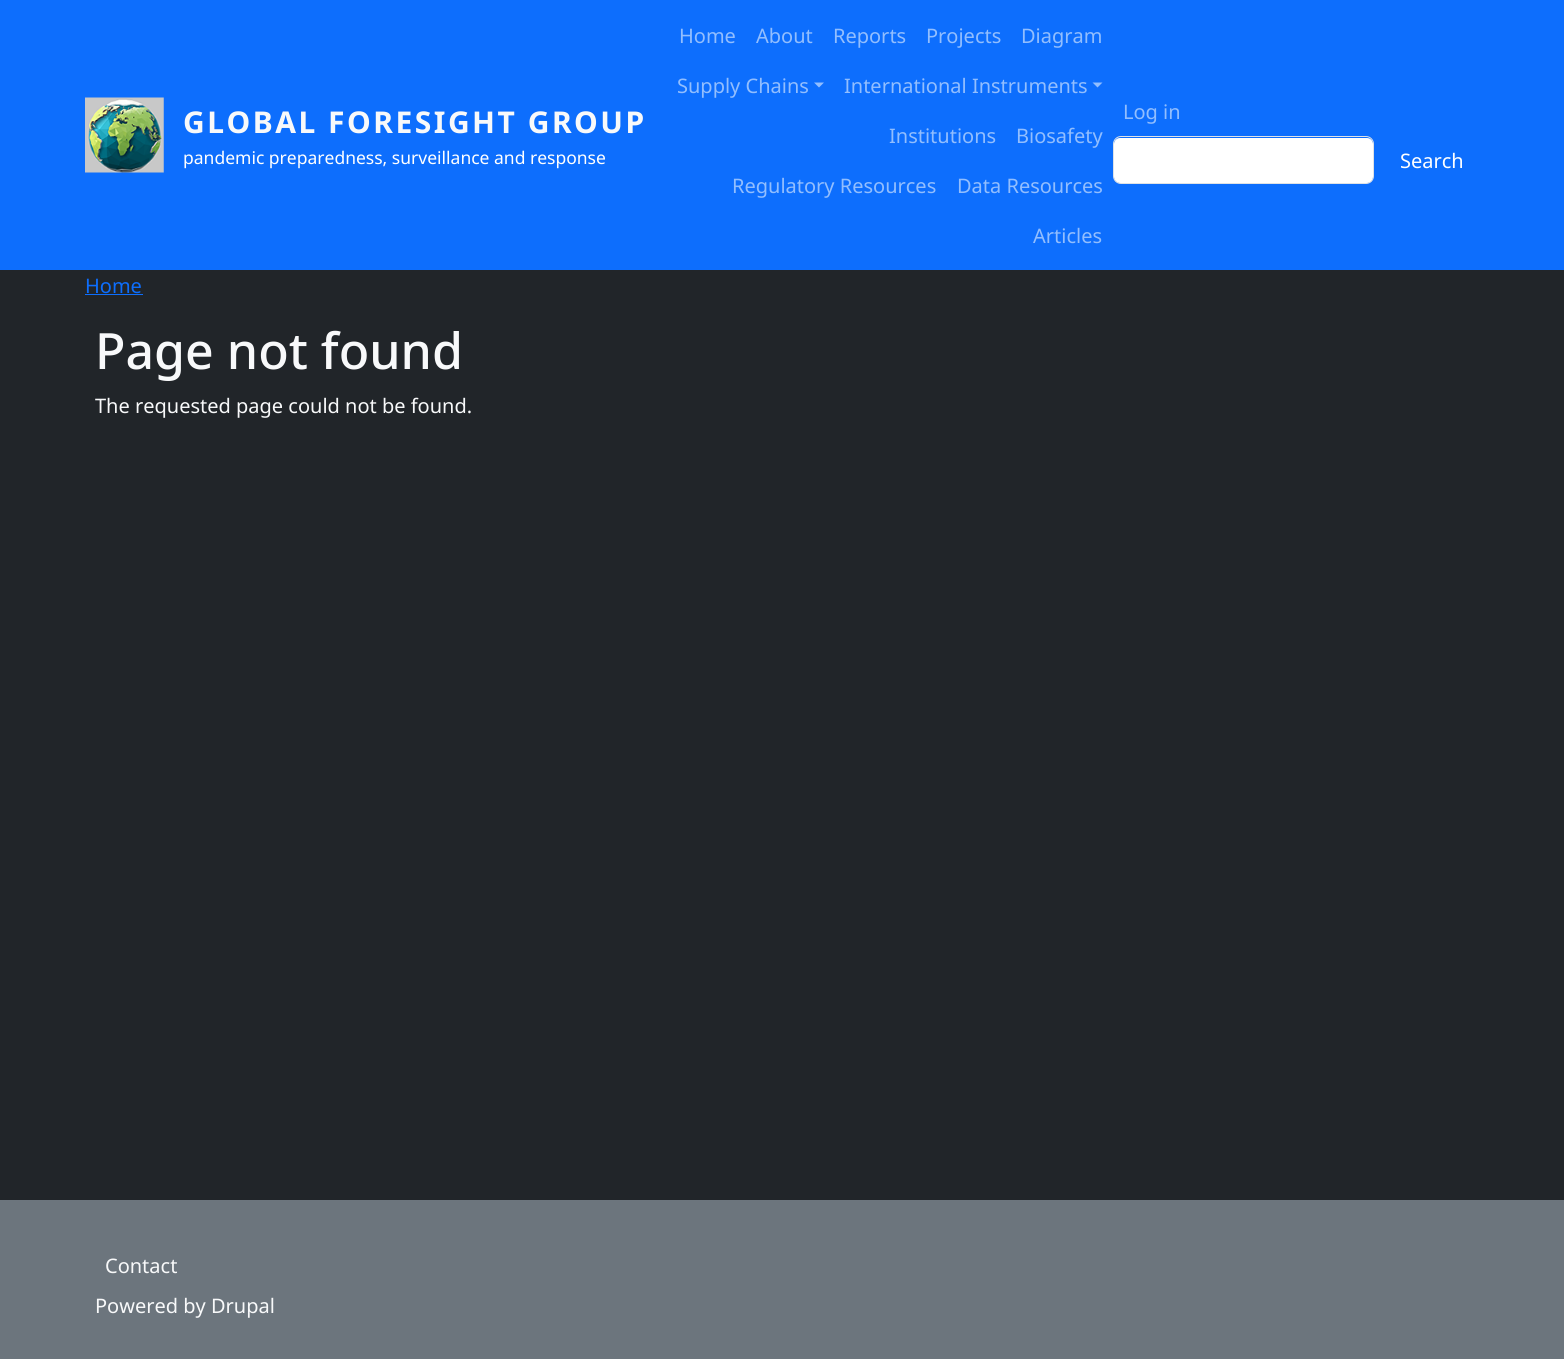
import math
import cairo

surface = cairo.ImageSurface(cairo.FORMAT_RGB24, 1564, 1359)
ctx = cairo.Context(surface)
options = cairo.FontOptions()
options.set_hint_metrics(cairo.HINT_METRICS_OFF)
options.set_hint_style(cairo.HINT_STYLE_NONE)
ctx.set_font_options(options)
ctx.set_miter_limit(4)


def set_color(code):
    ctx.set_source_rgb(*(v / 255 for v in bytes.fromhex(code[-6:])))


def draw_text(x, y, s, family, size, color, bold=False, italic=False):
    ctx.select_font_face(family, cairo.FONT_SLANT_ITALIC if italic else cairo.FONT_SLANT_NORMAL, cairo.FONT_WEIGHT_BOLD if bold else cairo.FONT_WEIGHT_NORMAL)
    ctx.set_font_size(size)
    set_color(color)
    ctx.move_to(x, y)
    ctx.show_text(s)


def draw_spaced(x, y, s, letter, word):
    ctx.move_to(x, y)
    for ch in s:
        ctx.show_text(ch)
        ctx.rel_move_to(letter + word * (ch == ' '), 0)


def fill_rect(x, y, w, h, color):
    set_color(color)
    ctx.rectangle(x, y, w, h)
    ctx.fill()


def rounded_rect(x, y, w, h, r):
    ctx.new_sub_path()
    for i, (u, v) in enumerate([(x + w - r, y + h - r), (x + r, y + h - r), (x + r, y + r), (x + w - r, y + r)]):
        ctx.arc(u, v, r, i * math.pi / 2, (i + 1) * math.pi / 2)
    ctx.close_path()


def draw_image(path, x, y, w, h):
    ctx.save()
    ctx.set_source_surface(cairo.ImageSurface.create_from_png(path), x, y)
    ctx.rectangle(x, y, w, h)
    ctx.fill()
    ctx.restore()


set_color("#212529")
ctx.paint()
fill_rect(0, 0, 1564, 270, "#0d6efd")
draw_image("assets/img1.png", 85, 97, 79, 76)
ctx.select_font_face("Noto Sans", cairo.FONT_SLANT_NORMAL, cairo.FONT_WEIGHT_BOLD)
ctx.set_font_size(30)
set_color("#f8f9fa")
draw_spaced(183, 133, "GLOBAL FORESIGHT GROUP", 2.5, 0)
draw_text(183, 164, "pandemic preparedness, surveillance and response", "Noto Sans", 17.5, "#ffffff")
draw_text(679, 43, "Home", "Noto Sans", 20, "#92befe")
draw_text(756, 43, "About", "Noto Sans", 20, "#92befe")
draw_text(833, 43, "Reports", "Noto Sans", 20, "#92befe")
draw_text(926, 43, "Projects", "Noto Sans", 20, "#92befe")
draw_text(1021, 43, "Diagram", "Noto Sans", 20, "#92befe")
draw_text(677, 93, "Supply Chains", "Noto Sans", 20, "#92befe")
ctx.new_path()
ctx.move_to(814, 82.5)
ctx.line_to(824, 82.5)
ctx.line_to(819, 87.5)
ctx.close_path()
ctx.fill()
draw_text(844, 93, "International Instruments", "Noto Sans", 20, "#92befe")
ctx.new_path()
ctx.move_to(1092.5, 82.5)
ctx.line_to(1102.5, 82.5)
ctx.line_to(1097.5, 87.5)
ctx.close_path()
ctx.fill()
draw_text(889, 143, "Institutions", "Noto Sans", 20, "#92befe")
draw_text(1016, 143, "Biosafety", "Noto Sans", 20, "#92befe")
draw_text(732, 193, "Regulatory Resources", "Noto Sans", 20, "#92befe")
draw_text(957, 193, "Data Resources", "Noto Sans", 20, "#92befe")
draw_text(1033, 243, "Articles", "Noto Sans", 20, "#92befe")
draw_text(1123, 119, "Log in", "Noto Sans", 20, "#92befe")
set_color("#ffffff")
rounded_rect(1114, 138, 259, 45, 6)
ctx.fill()
rounded_rect(1113.5, 136.5, 260, 47, 7.5)
set_color("#dee2e6")
ctx.set_line_width(1)
ctx.stroke()
draw_text(1400, 168, "Search", "Noto Sans", 20, "#ffffff")
draw_text(85, 293, "Home", "Noto Sans", 20, "#0d6efd")
fill_rect(85, 294, 58, 1, "#0d6efd")
draw_text(95, 369, "Page not found", "Noto Sans Medium", 50, "#f8f9fa")
draw_text(95, 413, "The requested page could not be found.", "Noto Sans", 20, "#f8f9fa")
fill_rect(0, 1200, 1564, 159, "#6c757d")
draw_text(105, 1273, "Contact", "Noto Sans", 20, "#f8f9fa")
draw_text(95, 1313, "Powered by Drupal", "Noto Sans", 20, "#f8f9fa")
surface.write_to_png("output.png")
